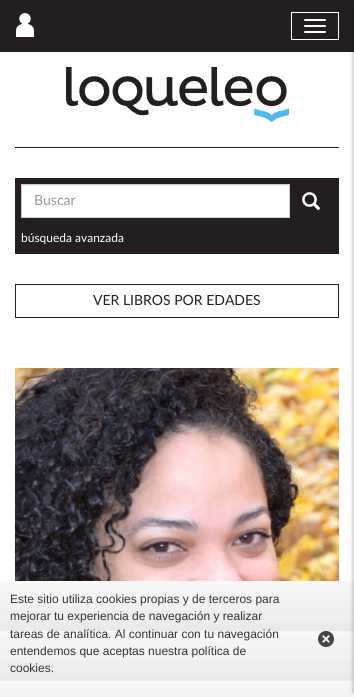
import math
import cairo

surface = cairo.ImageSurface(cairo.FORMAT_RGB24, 354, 697)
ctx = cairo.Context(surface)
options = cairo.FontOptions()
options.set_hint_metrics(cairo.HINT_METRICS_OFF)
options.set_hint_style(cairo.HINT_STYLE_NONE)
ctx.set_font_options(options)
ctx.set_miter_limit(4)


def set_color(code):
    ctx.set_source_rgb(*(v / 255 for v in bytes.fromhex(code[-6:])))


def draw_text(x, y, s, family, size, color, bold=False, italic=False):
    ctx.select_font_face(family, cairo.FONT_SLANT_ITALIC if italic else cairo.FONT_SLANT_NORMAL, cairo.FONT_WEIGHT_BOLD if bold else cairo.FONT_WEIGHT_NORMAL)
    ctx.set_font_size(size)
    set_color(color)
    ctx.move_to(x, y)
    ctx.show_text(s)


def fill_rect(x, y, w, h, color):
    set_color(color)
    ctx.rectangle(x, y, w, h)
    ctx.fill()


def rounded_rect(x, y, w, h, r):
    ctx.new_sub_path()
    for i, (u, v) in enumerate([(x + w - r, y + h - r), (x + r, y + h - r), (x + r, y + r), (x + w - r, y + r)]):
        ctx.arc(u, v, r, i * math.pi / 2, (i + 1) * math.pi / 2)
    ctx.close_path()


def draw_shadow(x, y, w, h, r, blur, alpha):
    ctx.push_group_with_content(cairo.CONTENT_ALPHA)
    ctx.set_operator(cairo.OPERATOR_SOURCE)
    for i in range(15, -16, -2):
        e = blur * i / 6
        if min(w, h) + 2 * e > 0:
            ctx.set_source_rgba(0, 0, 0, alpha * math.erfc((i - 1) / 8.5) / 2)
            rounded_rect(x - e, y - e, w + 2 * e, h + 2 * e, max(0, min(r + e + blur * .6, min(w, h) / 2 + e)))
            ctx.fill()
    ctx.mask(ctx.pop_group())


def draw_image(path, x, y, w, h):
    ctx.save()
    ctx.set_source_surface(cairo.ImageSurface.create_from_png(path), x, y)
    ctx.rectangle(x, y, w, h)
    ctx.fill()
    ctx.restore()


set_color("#ffffff")
ctx.paint()
fill_rect(0, 0, 354, 52, "#231f20")
draw_image("assets/img1.png", 16, 13, 18, 24)
ctx.rectangle(291.5, 12.5, 47, 27)
set_color("#ffffff")
ctx.set_line_width(1)
ctx.stroke()
rounded_rect(304, 19, 22, 2, 1)
ctx.fill()
rounded_rect(304, 25, 22, 2, 1)
ctx.fill()
rounded_rect(304, 31, 22, 2, 1)
ctx.fill()
draw_image("assets/img5.png", 0, 581, 354, 116)
set_color("#000000")
draw_shadow(354, 5, 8, 687, 0, 2.5, 0.4)
fill_rect(15, 147, 324, 1, "#231f20")
draw_image("assets/img2.png", 66, 67, 223, 55)
fill_rect(15, 178, 324, 76, "#231f20")
fill_rect(22, 186, 267, 31, "#ffffff")
fill_rect(22, 185, 267, 1, "#ececec")
ctx.rectangle(21.5, 184.5, 268, 33)
set_color("#cccccc")
ctx.stroke()
draw_text(34, 205, "Buscar", "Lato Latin", 14, "#999999")
draw_image("assets/img3.png", 302, 192, 19, 19)
draw_text(21, 242, "búsqueda avanzada", "Lato Latin", 12, "#ffffff")
ctx.rectangle(15.5, 284.5, 323, 33)
set_color("#231f20")
ctx.stroke()
draw_text(93, 305, "VER LIBROS POR EDADES", "Lato Latin", 14, "#231f20")
draw_image("assets/img4.png", 15, 368, 324, 213)
draw_text(10, 603, "Este sitio utiliza cookies propias y de terceros para", "Liberation Sans", 12, "#333333")
draw_text(10, 620, "mejorar tu experiencia de navegación y realizar", "Liberation Sans", 12, "#333333")
draw_text(10, 638, "tareas de analítica. Al continuar con tu navegación", "Liberation Sans", 12, "#333333")
draw_text(10, 655, "entendemos que aceptas nuestra política de", "Liberation Sans", 12, "#333333")
draw_text(10, 672, "cookies.", "Liberation Sans", 12, "#333333")
draw_image("assets/img6.png", 318, 631, 16, 16)
surface.write_to_png("output.png")
